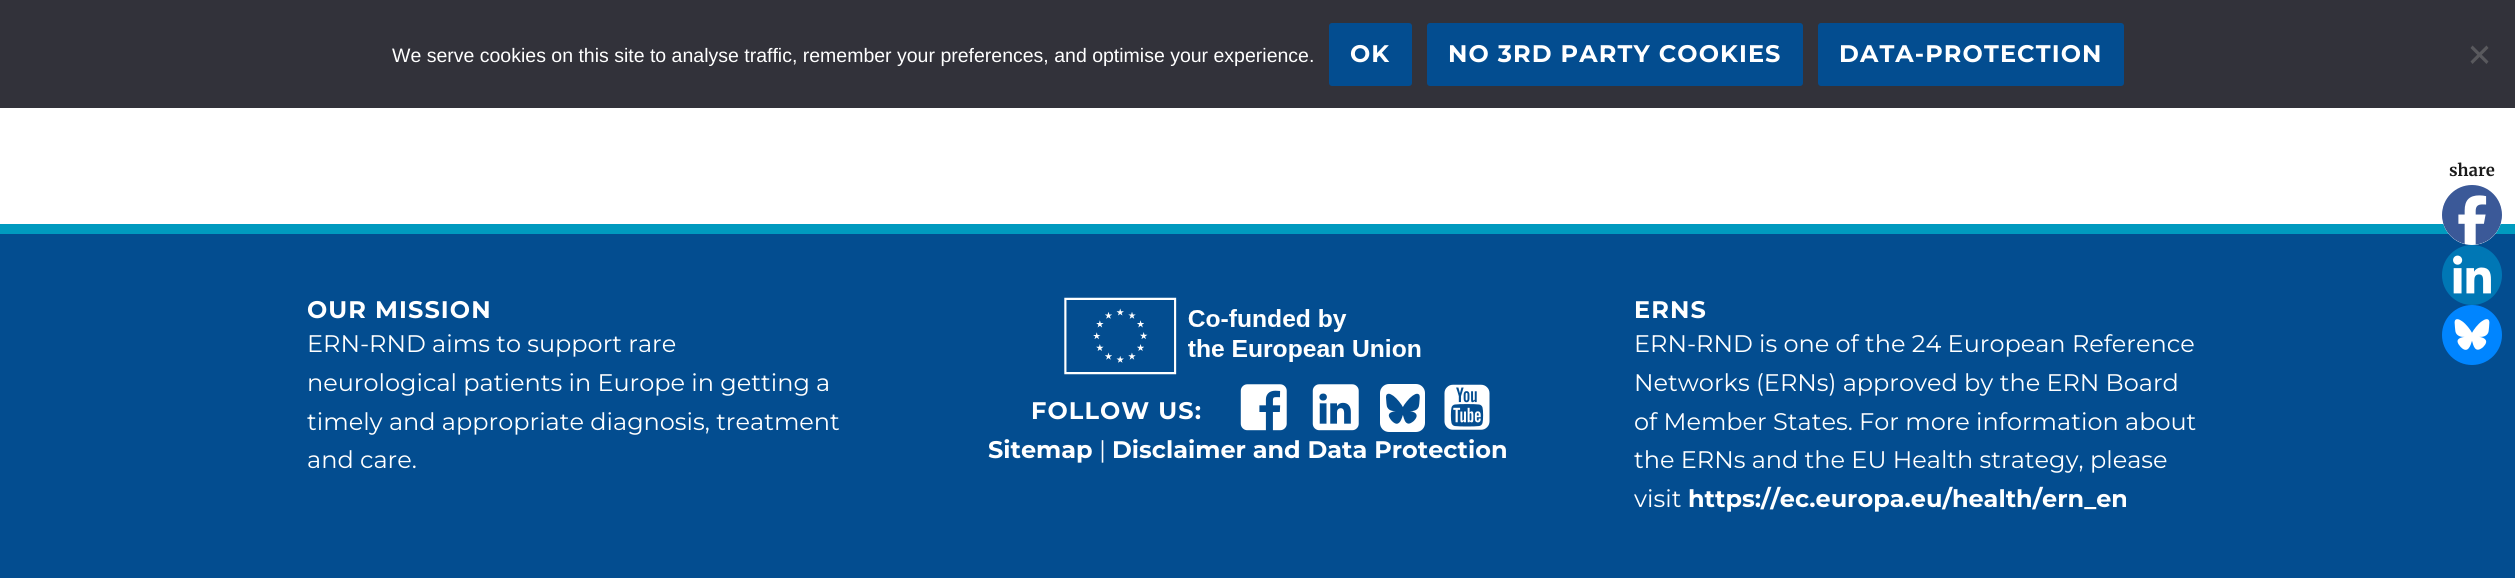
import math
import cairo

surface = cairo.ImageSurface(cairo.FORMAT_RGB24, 2515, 578)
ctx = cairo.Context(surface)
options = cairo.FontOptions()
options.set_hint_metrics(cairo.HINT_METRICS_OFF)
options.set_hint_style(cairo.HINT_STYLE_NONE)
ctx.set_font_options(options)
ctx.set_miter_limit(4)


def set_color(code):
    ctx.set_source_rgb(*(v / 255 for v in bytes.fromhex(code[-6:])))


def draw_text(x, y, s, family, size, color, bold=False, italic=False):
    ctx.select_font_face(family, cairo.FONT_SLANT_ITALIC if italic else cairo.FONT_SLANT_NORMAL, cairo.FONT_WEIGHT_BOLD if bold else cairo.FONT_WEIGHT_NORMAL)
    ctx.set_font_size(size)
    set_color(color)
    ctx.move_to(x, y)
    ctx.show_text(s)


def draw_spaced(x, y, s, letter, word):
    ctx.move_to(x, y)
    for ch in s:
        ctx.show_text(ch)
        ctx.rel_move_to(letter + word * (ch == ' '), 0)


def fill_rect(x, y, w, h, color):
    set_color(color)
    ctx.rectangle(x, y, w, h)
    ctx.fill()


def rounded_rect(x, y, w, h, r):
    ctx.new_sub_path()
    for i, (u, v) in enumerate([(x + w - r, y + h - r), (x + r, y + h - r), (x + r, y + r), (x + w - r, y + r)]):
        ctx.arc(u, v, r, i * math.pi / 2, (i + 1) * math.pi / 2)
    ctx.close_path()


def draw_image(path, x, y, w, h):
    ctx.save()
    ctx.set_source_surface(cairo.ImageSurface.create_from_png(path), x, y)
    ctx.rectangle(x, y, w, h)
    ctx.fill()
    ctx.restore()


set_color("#ffffff")
ctx.paint()
fill_rect(0, 0, 2515, 108, "#32323a")
draw_text(392, 62, "We serve cookies on this site to analyse traffic, remember your preferences, and optimise your experience.", "Liberation Sans", 19.5, "#ffffff")
set_color("#034d90")
rounded_rect(1329, 23, 83, 63, 3)
ctx.fill()
ctx.select_font_face("Montserrat Thin")
ctx.set_font_size(24)
set_color("#ffffff")
draw_spaced(1350, 62, "OK", 1.1, 0)
set_color("#034d90")
rounded_rect(1427, 23, 376, 63, 3)
ctx.fill()
set_color("#ffffff")
draw_spaced(1448, 62, "NO 3RD PARTY COOKIES", 1.1, 0)
set_color("#034d90")
rounded_rect(1818, 23, 306, 63, 3)
ctx.fill()
set_color("#ffffff")
draw_spaced(1839, 62, "DATA-PROTECTION", 1.1, 0)
set_color("#59595d")
ctx.new_path()
ctx.move_to(2486.5, 45.5)
ctx.line_to(2488.5, 48)
ctx.line_to(2472.5, 64)
ctx.line_to(2470.5, 61.5)
ctx.close_path()
ctx.fill()
ctx.new_path()
ctx.move_to(2470.5, 48)
ctx.line_to(2472.5, 45.5)
ctx.line_to(2488.5, 61.5)
ctx.line_to(2486.5, 64)
ctx.close_path()
ctx.fill()
draw_text(2449, 176, "share", "Merriweather", 16.5, "#1a1a1a", bold=True)
fill_rect(0, 234, 2515, 344, "#034d90")
fill_rect(0, 224, 2515, 10, "#009abf")
set_color("#ffffff")
ctx.new_path()
ctx.arc(2472, 215, 30, 0, 2 * math.pi)
ctx.fill()
draw_image("assets/img1.png", 2442, 185, 60, 60)
set_color("#0077b5")
ctx.arc(2472, 275, 30, 0, 2 * math.pi)
ctx.fill()
draw_image("assets/img2.png", 2453, 255, 38, 39)
set_color("#0085ff")
ctx.arc(2472, 335, 30, 0, 2 * math.pi)
ctx.fill()
draw_image("assets/img3.png", 2454, 319, 36, 31)
ctx.select_font_face("Montserrat Thin")
ctx.set_font_size(24)
set_color("#ffffff")
draw_spaced(307, 318, "OUR MISSION", 1.1, 0)
draw_text(307, 352, "ERN-RND aims to support rare", "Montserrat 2 Thin", 24, "#ffffff")
draw_text(307, 391, "neurological patients in Europe in getting a", "Montserrat 2 Thin", 24, "#ffffff")
draw_text(307, 430, "timely and appropriate diagnosis, treatment", "Montserrat 2 Thin", 24, "#ffffff")
draw_text(307, 468, "and care.", "Montserrat 2 Thin", 24, "#ffffff")
draw_image("assets/img4.png", 1064, 297, 357, 78)
ctx.select_font_face("Montserrat Thin")
draw_spaced(1031, 419, "FOLLOW US:", 1.1, 0)
draw_image("assets/img5.png", 1240, 384, 47, 47)
draw_image("assets/img6.png", 1312, 384, 47, 47)
rounded_rect(1380, 384, 45, 48, 9)
ctx.fill()
draw_image("assets/img7.png", 1386, 393, 34, 31)
draw_image("assets/img8.png", 1444, 384, 46, 46)
draw_text(988, 458, "Sitemap", "Montserrat Thin", 24, "#ffffff")
draw_text(1099, 458, "|", "Montserrat 2 Thin", 24, "#ffffff")
draw_text(1112, 458, "Disclaimer and Data Protection", "Montserrat Thin", 24, "#ffffff")
draw_spaced(1634, 318, "ERNS", 1.1, 0)
draw_text(1634, 352, "ERN-RND is one of the 24 European Reference", "Montserrat 2 Thin", 24, "#ffffff")
draw_text(1634, 391, "Networks (ERNs) approved by the ERN Board", "Montserrat 2 Thin", 24, "#ffffff")
draw_text(1634, 430, "of Member States. For more information about", "Montserrat 2 Thin", 24, "#ffffff")
draw_text(1634, 468, "the ERNs and the EU Health strategy, please", "Montserrat 2 Thin", 24, "#ffffff")
draw_text(1634, 507, "visit", "Montserrat 2 Thin", 24, "#ffffff")
draw_text(1688, 507, "https://ec.europa.eu/health/ern_en", "Montserrat Thin", 24, "#ffffff")
surface.write_to_png("output.png")
